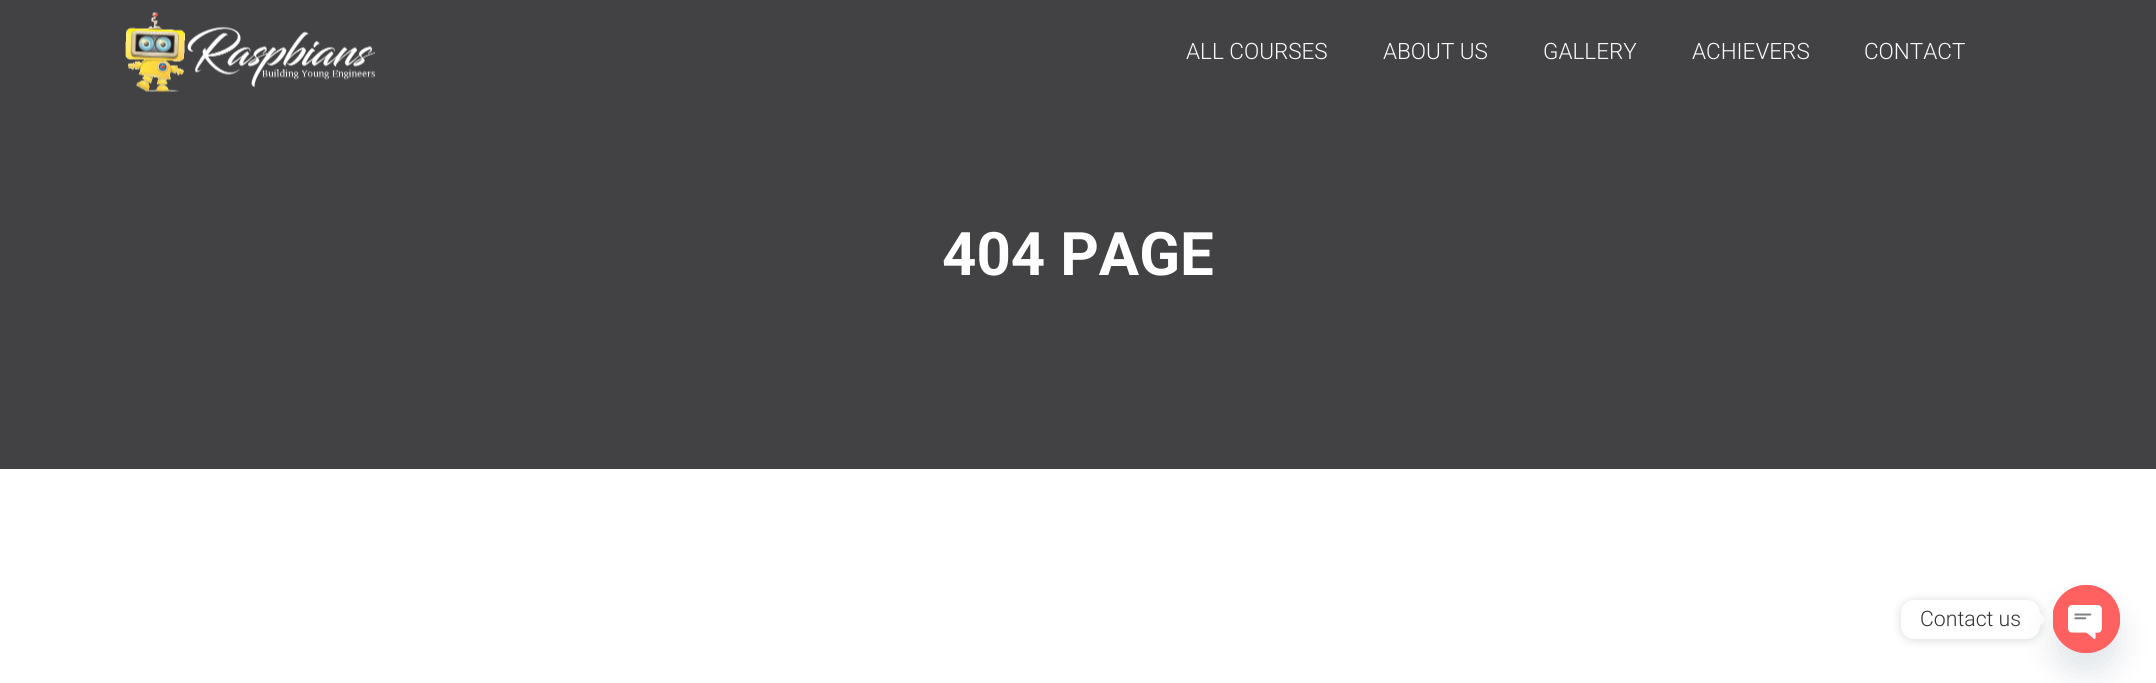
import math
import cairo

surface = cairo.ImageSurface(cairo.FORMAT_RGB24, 2156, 683)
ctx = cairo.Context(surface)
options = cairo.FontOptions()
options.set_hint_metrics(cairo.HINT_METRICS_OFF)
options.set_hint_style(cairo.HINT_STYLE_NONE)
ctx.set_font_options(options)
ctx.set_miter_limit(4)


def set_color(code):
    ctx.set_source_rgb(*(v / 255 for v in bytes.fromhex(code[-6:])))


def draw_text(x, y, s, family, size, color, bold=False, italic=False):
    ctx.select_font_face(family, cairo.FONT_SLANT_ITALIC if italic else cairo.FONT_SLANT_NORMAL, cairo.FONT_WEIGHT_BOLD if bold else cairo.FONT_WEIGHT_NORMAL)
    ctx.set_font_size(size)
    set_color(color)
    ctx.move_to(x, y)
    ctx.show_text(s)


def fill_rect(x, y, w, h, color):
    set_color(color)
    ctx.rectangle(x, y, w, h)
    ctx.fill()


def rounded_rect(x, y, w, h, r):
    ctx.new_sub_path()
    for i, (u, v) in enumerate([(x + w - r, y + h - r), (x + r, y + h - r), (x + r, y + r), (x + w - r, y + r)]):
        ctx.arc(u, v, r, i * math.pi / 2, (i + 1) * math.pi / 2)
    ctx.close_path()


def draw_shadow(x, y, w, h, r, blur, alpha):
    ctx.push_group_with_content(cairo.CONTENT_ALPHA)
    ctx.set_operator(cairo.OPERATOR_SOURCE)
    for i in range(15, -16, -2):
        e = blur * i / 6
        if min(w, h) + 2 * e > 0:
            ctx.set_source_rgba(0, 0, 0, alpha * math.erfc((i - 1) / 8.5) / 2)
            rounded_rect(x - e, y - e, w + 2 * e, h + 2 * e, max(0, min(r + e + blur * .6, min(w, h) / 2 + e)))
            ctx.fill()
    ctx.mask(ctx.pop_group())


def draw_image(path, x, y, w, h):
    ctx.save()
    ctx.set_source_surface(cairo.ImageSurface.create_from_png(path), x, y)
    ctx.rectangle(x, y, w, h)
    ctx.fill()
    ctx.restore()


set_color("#ffffff")
ctx.paint()
fill_rect(0, 0, 2156, 469, "#424244")
draw_image("assets/img1.png", 125, 12, 250, 80)
draw_text(1186, 59, "ALL COURSES", "Roboto Light", 22.5, "#faf9f9")
draw_text(1383, 59, "ABOUT US", "Roboto Light", 22.5, "#faf9f9")
draw_text(1543, 59, "GALLERY", "Roboto Light", 22.5, "#faf9f9")
draw_text(1692, 59, "ACHIEVERS", "Roboto Light", 22.5, "#faf9f9")
draw_text(1864, 59, "CONTACT", "Roboto Light", 22.5, "#faf9f9")
draw_text(942, 275, "404 PAGE", "Roboto", 60, "#ffffff", bold=True)
set_color("#000000")
draw_shadow(1901, 601, 139, 39, 13, 5, 0.15)
set_color("#ffffff")
rounded_rect(1901, 600, 139, 39, 13)
ctx.fill()
draw_text(1920, 626, "Contact us", "Roboto Light", 21.25, "#333333")
set_color("#ffffff")
ctx.new_path()
ctx.move_to(2040, 625.5)
ctx.line_to(2040, 613)
ctx.line_to(2046, 619.5)
ctx.close_path()
ctx.fill()
set_color("#49687e")
draw_shadow(2053, 605, 67, 68, 33.5, 15, 0.16)
set_color("#ff6060")
rounded_rect(2053, 585, 67, 68, 33.5)
ctx.fill()
draw_image("assets/img2.png", 2053, 585, 67, 68)
surface.write_to_png("output.png")
